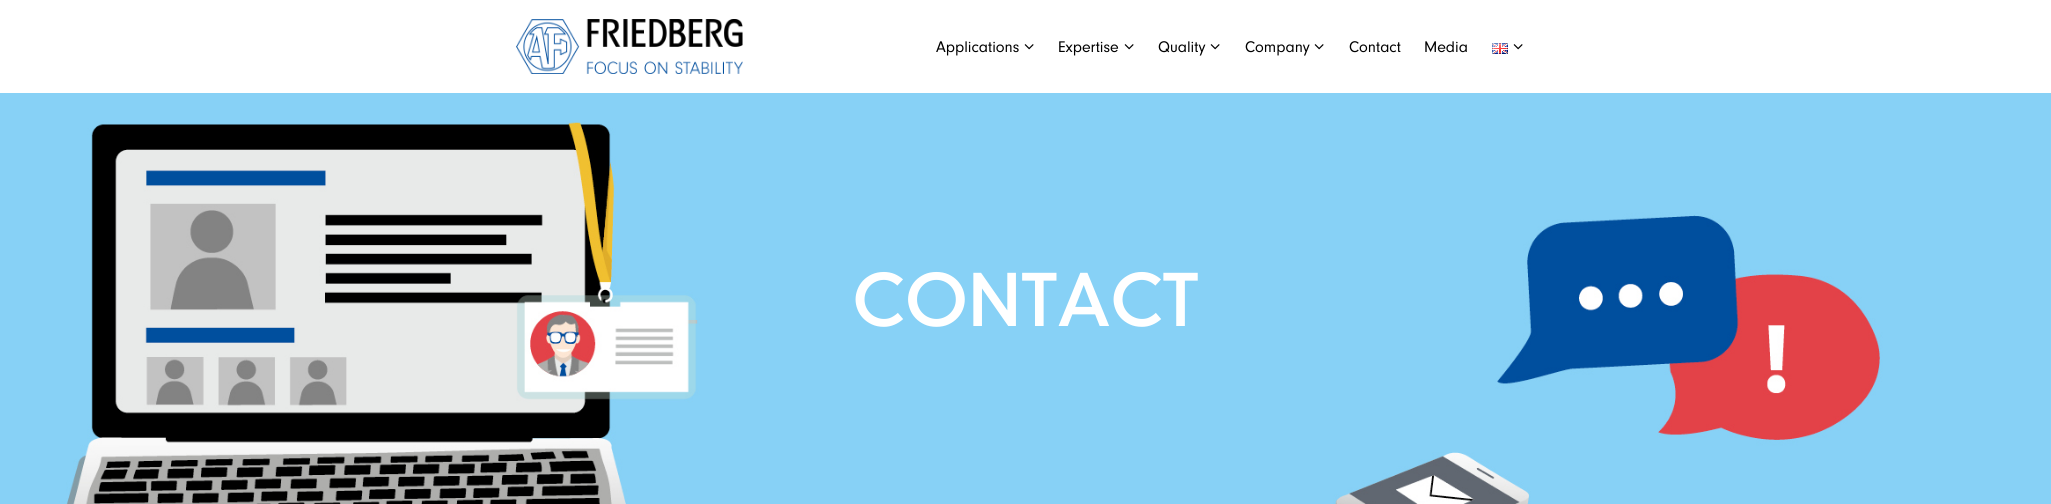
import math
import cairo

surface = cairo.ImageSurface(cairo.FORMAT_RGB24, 2051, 504)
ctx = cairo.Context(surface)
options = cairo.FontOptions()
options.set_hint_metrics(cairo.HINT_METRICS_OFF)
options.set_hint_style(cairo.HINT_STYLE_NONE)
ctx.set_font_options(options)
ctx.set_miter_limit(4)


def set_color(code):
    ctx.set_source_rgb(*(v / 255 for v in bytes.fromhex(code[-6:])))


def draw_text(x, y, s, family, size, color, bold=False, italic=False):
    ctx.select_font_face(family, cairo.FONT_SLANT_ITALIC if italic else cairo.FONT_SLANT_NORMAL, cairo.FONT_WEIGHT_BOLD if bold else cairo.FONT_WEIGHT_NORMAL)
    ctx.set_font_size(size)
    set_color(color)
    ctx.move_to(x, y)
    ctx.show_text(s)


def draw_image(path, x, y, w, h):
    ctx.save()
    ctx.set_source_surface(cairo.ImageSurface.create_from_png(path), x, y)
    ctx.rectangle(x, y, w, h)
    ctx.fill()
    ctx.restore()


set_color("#ffffff")
ctx.paint()
draw_image("assets/img1.png", 516, 19, 227, 55)
draw_text(936, 52, "Applications", "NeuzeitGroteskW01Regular", 16, "#000000")
draw_image("assets/img2.png", 1024, 44, 10, 6)
draw_text(1058, 52, "Expertise", "NeuzeitGroteskW01Regular", 16, "#000000")
draw_image("assets/img2.png", 1124, 44, 10, 6)
draw_text(1158, 52, "Quality", "NeuzeitGroteskW01Regular", 16, "#000000")
draw_image("assets/img2.png", 1210, 44, 10, 6)
draw_text(1245, 52, "Company", "NeuzeitGroteskW01Regular", 16, "#000000")
draw_image("assets/img2.png", 1314, 44, 10, 6)
draw_text(1349, 52, "Contact", "NeuzeitGroteskW01Regular", 16, "#000000")
draw_text(1424, 52, "Media", "NeuzeitGroteskW01Regular", 16, "#000000")
draw_image("assets/img3.png", 1492, 43, 16, 11)
draw_image("assets/img2.png", 1513, 44, 10, 6)
draw_image("assets/img4.png", 0, 93, 2051, 411)
draw_text(852, 326, "CONTACT", "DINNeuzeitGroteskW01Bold", 70, "#ffffff", bold=True)
surface.write_to_png("output.png")
